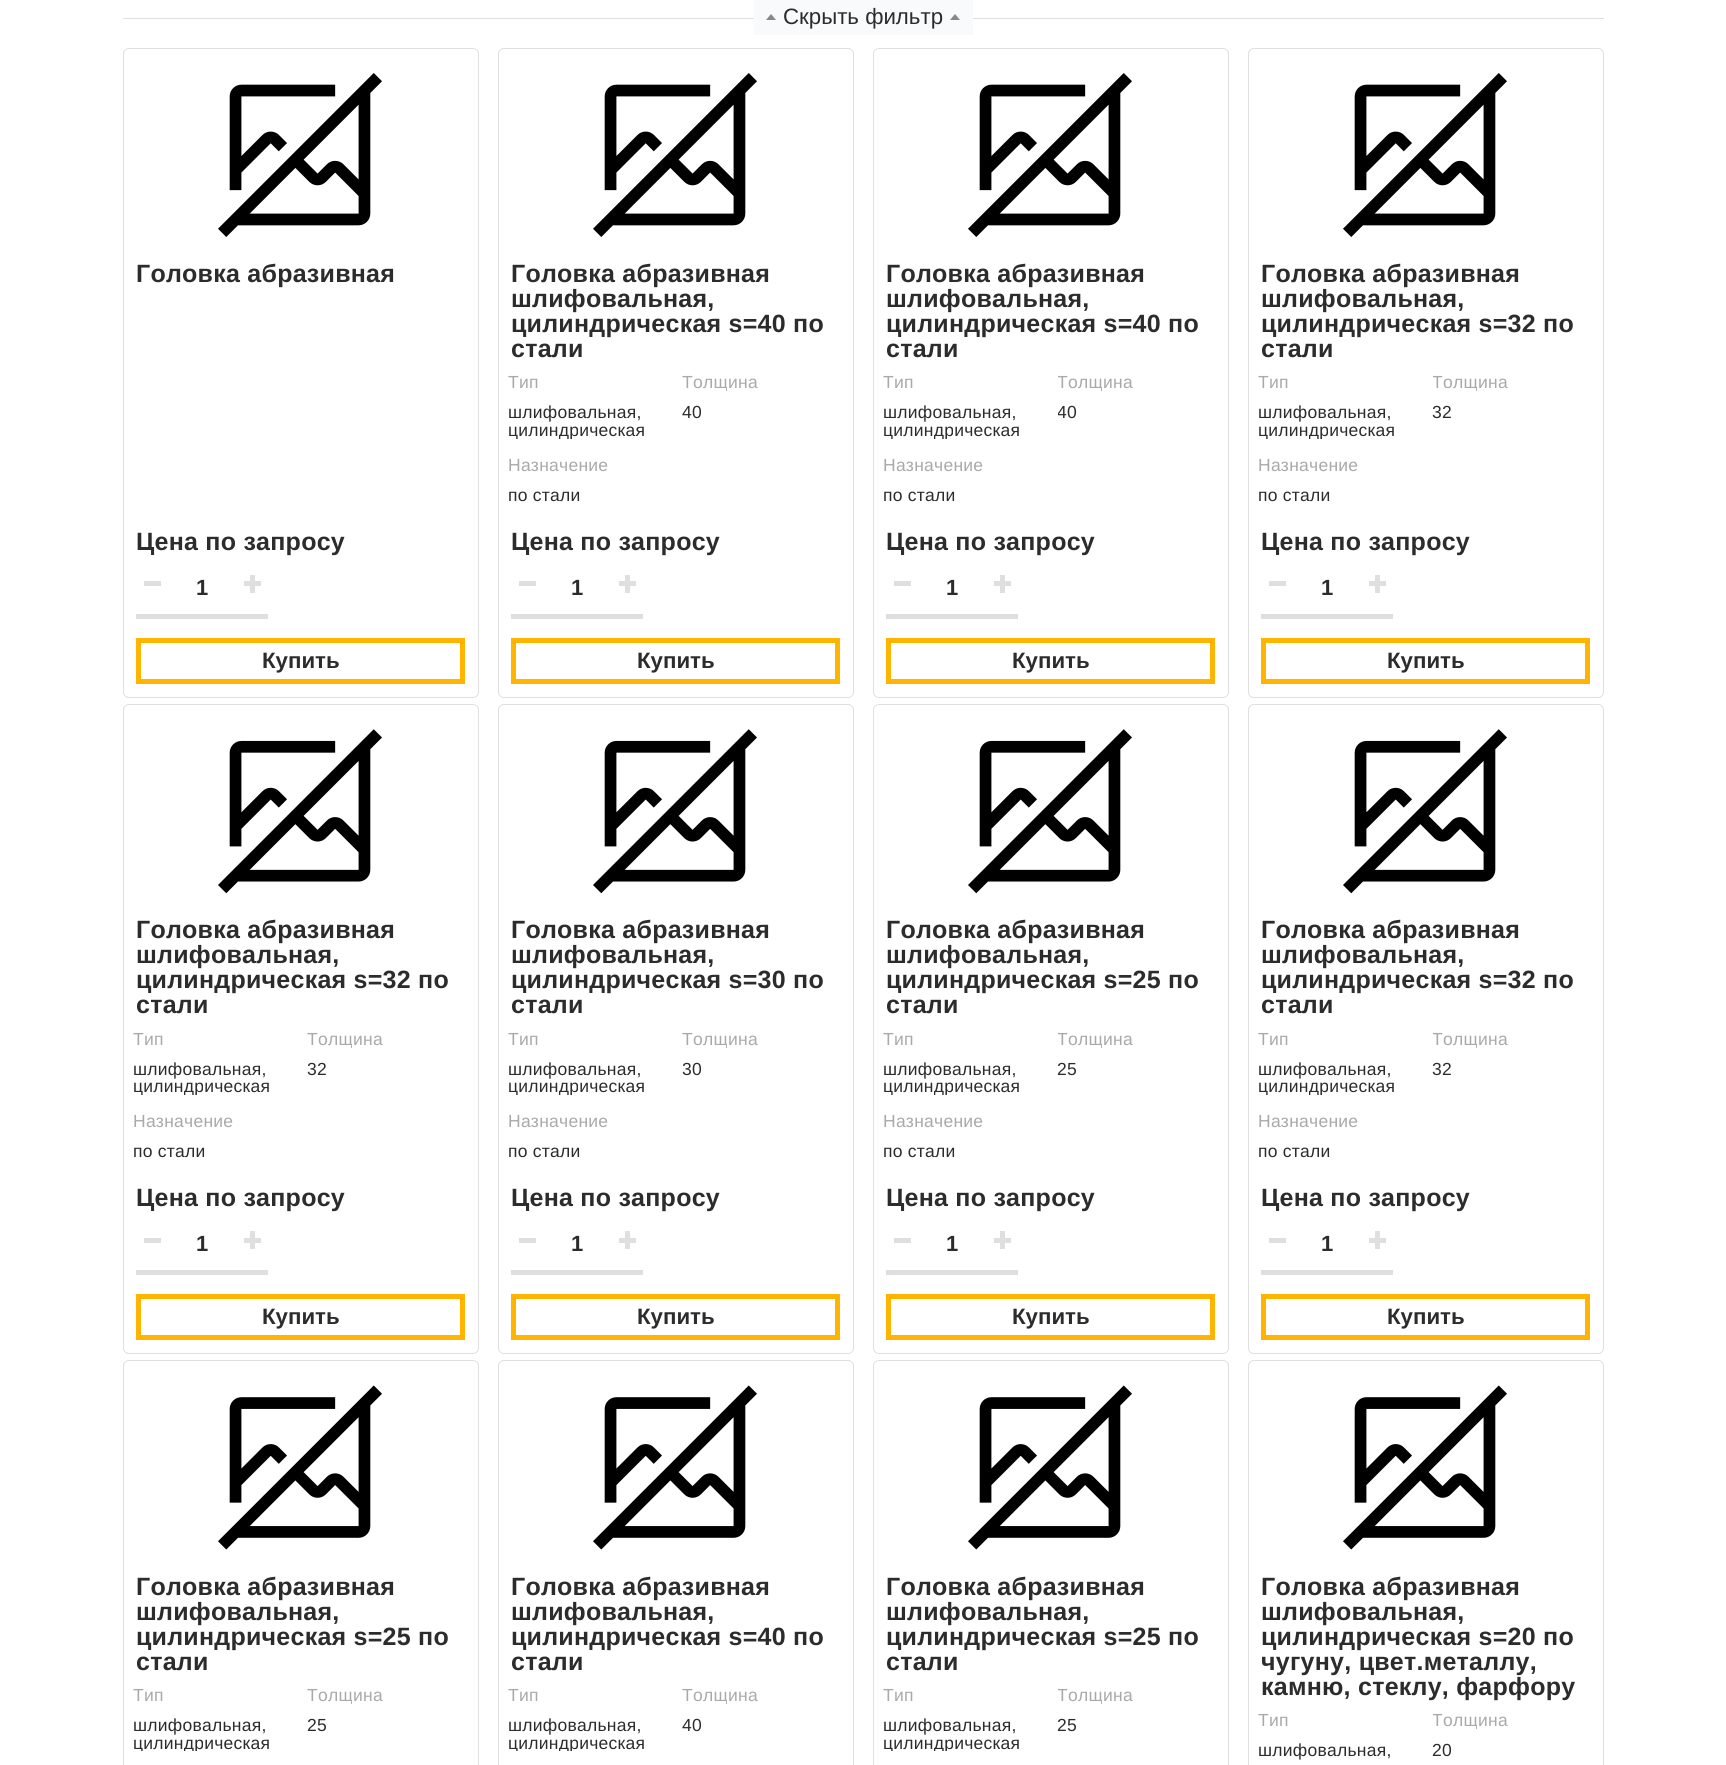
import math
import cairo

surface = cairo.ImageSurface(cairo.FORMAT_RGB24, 1726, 1765)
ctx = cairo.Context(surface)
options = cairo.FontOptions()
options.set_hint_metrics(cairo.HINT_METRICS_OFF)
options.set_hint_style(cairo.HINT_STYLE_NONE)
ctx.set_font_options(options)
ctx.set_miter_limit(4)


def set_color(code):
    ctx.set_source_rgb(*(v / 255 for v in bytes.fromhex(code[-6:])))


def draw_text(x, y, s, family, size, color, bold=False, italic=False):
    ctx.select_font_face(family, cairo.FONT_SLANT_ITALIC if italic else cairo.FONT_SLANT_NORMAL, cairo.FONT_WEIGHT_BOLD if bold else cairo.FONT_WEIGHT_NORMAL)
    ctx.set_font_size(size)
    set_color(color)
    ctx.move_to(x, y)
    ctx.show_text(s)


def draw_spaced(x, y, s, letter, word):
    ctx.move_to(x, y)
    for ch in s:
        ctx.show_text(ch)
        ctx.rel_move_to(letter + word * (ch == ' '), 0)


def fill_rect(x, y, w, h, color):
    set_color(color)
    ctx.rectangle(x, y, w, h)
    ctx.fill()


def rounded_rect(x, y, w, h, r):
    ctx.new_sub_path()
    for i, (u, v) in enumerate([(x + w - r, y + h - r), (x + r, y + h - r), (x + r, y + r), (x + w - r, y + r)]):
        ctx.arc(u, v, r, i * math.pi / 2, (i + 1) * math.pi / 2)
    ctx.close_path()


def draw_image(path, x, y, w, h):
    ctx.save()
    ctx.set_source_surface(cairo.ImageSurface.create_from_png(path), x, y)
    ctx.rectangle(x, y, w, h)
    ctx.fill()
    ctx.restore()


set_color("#ffffff")
ctx.paint()
fill_rect(123, 18, 1481, 1, "#dfdfdf")
fill_rect(754, 0, 219, 35, "#f8fafc")
set_color("#888888")
ctx.new_path()
ctx.move_to(776, 20)
ctx.line_to(766, 20)
ctx.line_to(771, 14)
ctx.close_path()
ctx.fill()
draw_text(783, 24, "Скрыть фильтр", "Liberation Sans", 22.25, "#2c2c2c")
set_color("#888888")
ctx.new_path()
ctx.move_to(960, 20)
ctx.line_to(950, 20)
ctx.line_to(955, 14)
ctx.close_path()
ctx.fill()
rounded_rect(123.5, 48.5, 355, 649, 5.5)
set_color("#dfdfdf")
ctx.set_line_width(1)
ctx.stroke()
draw_image("assets/img1.png", 218, 73, 164, 164)
ctx.select_font_face("Liberation Sans", cairo.FONT_SLANT_NORMAL, cairo.FONT_WEIGHT_BOLD)
ctx.set_font_size(25)
set_color("#2c2c2c")
draw_spaced(136, 282, "Головка абразивная", 0.25, 0)
draw_spaced(136, 550, "Цена по запросу", 0.25, 0)
fill_rect(144, 581, 17, 5, "#dfdfdf")
fill_rect(136, 614, 132, 5, "#dfdfdf")
draw_text(196, 595, "1", "Liberation Sans", 22, "#2c2c2c", bold=True)
fill_rect(250, 575, 5, 18, "#dfdfdf")
fill_rect(244, 581, 17, 5, "#dfdfdf")
ctx.rectangle(138.5, 640.5, 324, 41)
set_color("#ffb400")
ctx.set_line_width(5)
ctx.stroke()
draw_text(262, 668, "Купить", "Liberation Sans", 22.25, "#2c2c2c", bold=True)
rounded_rect(498.5, 48.5, 355, 649, 5.5)
set_color("#dfdfdf")
ctx.set_line_width(1)
ctx.stroke()
draw_image("assets/img1.png", 593, 73, 164, 164)
ctx.set_font_size(25)
set_color("#2c2c2c")
draw_spaced(511, 282, "Головка абразивная", 0.25, 0)
draw_spaced(511, 307, "шлифовальная,", 0.25, 0)
draw_spaced(511, 332, "цилиндрическая s=40 по", 0.25, 0)
draw_spaced(511, 357, "стали", 0.25, 0)
ctx.select_font_face("Liberation Sans")
ctx.set_font_size(17.5)
set_color("#a9a9a9")
draw_spaced(508, 388, "Тип", 0.25, 0)
set_color("#2c2c2c")
draw_spaced(508, 418, "шлифовальная,", 0.25, 0)
ctx.save()
ctx.rectangle(509, 404, 157, 35)
ctx.clip()
draw_spaced(508, 436, "цилиндрическая", 0.25, 0)
ctx.restore()
ctx.save()
ctx.rectangle(681, 374, 159, 17)
ctx.clip()
set_color("#a9a9a9")
draw_spaced(682, 388, "Толщина", 0.25, 0)
ctx.restore()
draw_spaced(682, 418, "40", 0.25, 0)
set_color("#a9a9a9")
draw_spaced(508, 471, "Назначение", 0.25, 0)
set_color("#2c2c2c")
draw_spaced(508, 501, "по стали", 0.25, 0)
ctx.select_font_face("Liberation Sans", cairo.FONT_SLANT_NORMAL, cairo.FONT_WEIGHT_BOLD)
ctx.set_font_size(25)
draw_spaced(511, 550, "Цена по запросу", 0.25, 0)
fill_rect(519, 581, 17, 5, "#dfdfdf")
fill_rect(511, 614, 132, 5, "#dfdfdf")
draw_text(571, 595, "1", "Liberation Sans", 22, "#2c2c2c", bold=True)
fill_rect(625, 575, 5, 18, "#dfdfdf")
fill_rect(619, 581, 17, 5, "#dfdfdf")
ctx.rectangle(513.5, 640.5, 324, 41)
set_color("#ffb400")
ctx.set_line_width(5)
ctx.stroke()
draw_text(637, 668, "Купить", "Liberation Sans", 22.25, "#2c2c2c", bold=True)
rounded_rect(873.5, 48.5, 355, 649, 5.5)
set_color("#dfdfdf")
ctx.set_line_width(1)
ctx.stroke()
draw_image("assets/img1.png", 968, 73, 164, 164)
ctx.set_font_size(25)
set_color("#2c2c2c")
draw_spaced(886, 282, "Головка абразивная", 0.25, 0)
draw_spaced(886, 307, "шлифовальная,", 0.25, 0)
draw_spaced(886, 332, "цилиндрическая s=40 по", 0.25, 0)
draw_spaced(886, 357, "стали", 0.25, 0)
ctx.select_font_face("Liberation Sans")
ctx.set_font_size(17.5)
set_color("#a9a9a9")
draw_spaced(883, 388, "Тип", 0.25, 0)
set_color("#2c2c2c")
draw_spaced(883, 418, "шлифовальная,", 0.25, 0)
ctx.save()
ctx.rectangle(884, 404, 157, 35)
ctx.clip()
draw_spaced(883, 436, "цилиндрическая", 0.25, 0)
ctx.restore()
ctx.save()
ctx.rectangle(1058, 374, 157, 17)
ctx.clip()
set_color("#a9a9a9")
draw_spaced(1057, 388, "Толщина", 0.25, 0)
ctx.restore()
ctx.save()
ctx.rectangle(1058, 404, 157, 17)
ctx.clip()
draw_spaced(1057, 418, "40", 0.25, 0)
ctx.restore()
set_color("#a9a9a9")
draw_spaced(883, 471, "Назначение", 0.25, 0)
set_color("#2c2c2c")
draw_spaced(883, 501, "по стали", 0.25, 0)
ctx.select_font_face("Liberation Sans", cairo.FONT_SLANT_NORMAL, cairo.FONT_WEIGHT_BOLD)
ctx.set_font_size(25)
draw_spaced(886, 550, "Цена по запросу", 0.25, 0)
fill_rect(894, 581, 17, 5, "#dfdfdf")
fill_rect(886, 614, 132, 5, "#dfdfdf")
draw_text(946, 595, "1", "Liberation Sans", 22, "#2c2c2c", bold=True)
fill_rect(1000, 575, 5, 18, "#dfdfdf")
fill_rect(994, 581, 17, 5, "#dfdfdf")
ctx.rectangle(888.5, 640.5, 324, 41)
set_color("#ffb400")
ctx.set_line_width(5)
ctx.stroke()
draw_text(1012, 668, "Купить", "Liberation Sans", 22.25, "#2c2c2c", bold=True)
rounded_rect(1248.5, 48.5, 355, 649, 5.5)
set_color("#dfdfdf")
ctx.set_line_width(1)
ctx.stroke()
draw_image("assets/img1.png", 1343, 73, 164, 164)
ctx.set_font_size(25)
set_color("#2c2c2c")
draw_spaced(1261, 282, "Головка абразивная", 0.25, 0)
draw_spaced(1261, 307, "шлифовальная,", 0.25, 0)
draw_spaced(1261, 332, "цилиндрическая s=32 по", 0.25, 0)
draw_spaced(1261, 357, "стали", 0.25, 0)
ctx.select_font_face("Liberation Sans")
ctx.set_font_size(17.5)
set_color("#a9a9a9")
draw_spaced(1258, 388, "Тип", 0.25, 0)
set_color("#2c2c2c")
draw_spaced(1258, 418, "шлифовальная,", 0.25, 0)
ctx.save()
ctx.rectangle(1259, 404, 157, 35)
ctx.clip()
draw_spaced(1258, 436, "цилиндрическая", 0.25, 0)
ctx.restore()
ctx.save()
ctx.rectangle(1433, 374, 157, 17)
ctx.clip()
set_color("#a9a9a9")
draw_spaced(1432, 388, "Толщина", 0.25, 0)
ctx.restore()
draw_spaced(1432, 418, "32", 0.25, 0)
set_color("#a9a9a9")
draw_spaced(1258, 471, "Назначение", 0.25, 0)
set_color("#2c2c2c")
draw_spaced(1258, 501, "по стали", 0.25, 0)
ctx.select_font_face("Liberation Sans", cairo.FONT_SLANT_NORMAL, cairo.FONT_WEIGHT_BOLD)
ctx.set_font_size(25)
draw_spaced(1261, 550, "Цена по запросу", 0.25, 0)
fill_rect(1269, 581, 17, 5, "#dfdfdf")
fill_rect(1261, 614, 132, 5, "#dfdfdf")
draw_text(1321, 595, "1", "Liberation Sans", 22, "#2c2c2c", bold=True)
fill_rect(1375, 575, 5, 18, "#dfdfdf")
fill_rect(1369, 581, 17, 5, "#dfdfdf")
ctx.rectangle(1263.5, 640.5, 324, 41)
set_color("#ffb400")
ctx.set_line_width(5)
ctx.stroke()
draw_text(1387, 668, "Купить", "Liberation Sans", 22.25, "#2c2c2c", bold=True)
rounded_rect(123.5, 704.5, 355, 649, 5.5)
set_color("#dfdfdf")
ctx.set_line_width(1)
ctx.stroke()
draw_image("assets/img2.png", 218, 729, 164, 165)
ctx.set_font_size(25)
set_color("#2c2c2c")
draw_spaced(136, 938, "Головка абразивная", 0.25, 0)
draw_spaced(136, 963, "шлифовальная,", 0.25, 0)
draw_spaced(136, 988, "цилиндрическая s=32 по", 0.25, 0)
draw_spaced(136, 1013, "стали", 0.25, 0)
ctx.select_font_face("Liberation Sans")
ctx.set_font_size(17.5)
set_color("#a9a9a9")
draw_spaced(133, 1045, "Тип", 0.25, 0)
set_color("#2c2c2c")
draw_spaced(133, 1075, "шлифовальная,", 0.25, 0)
ctx.save()
ctx.rectangle(134, 1060, 157, 35)
ctx.clip()
draw_spaced(133, 1092, "цилиндрическая", 0.25, 0)
ctx.restore()
ctx.save()
ctx.rectangle(306, 1030, 159, 18)
ctx.clip()
set_color("#a9a9a9")
draw_spaced(307, 1045, "Толщина", 0.25, 0)
ctx.restore()
draw_spaced(307, 1075, "32", 0.25, 0)
set_color("#a9a9a9")
draw_spaced(133, 1127, "Назначение", 0.25, 0)
set_color("#2c2c2c")
draw_spaced(133, 1157, "по стали", 0.25, 0)
ctx.select_font_face("Liberation Sans", cairo.FONT_SLANT_NORMAL, cairo.FONT_WEIGHT_BOLD)
ctx.set_font_size(25)
draw_spaced(136, 1206, "Цена по запросу", 0.25, 0)
fill_rect(144, 1238, 17, 5, "#dfdfdf")
fill_rect(136, 1270, 132, 5, "#dfdfdf")
draw_text(196, 1251, "1", "Liberation Sans", 22, "#2c2c2c", bold=True)
fill_rect(250, 1231, 5, 18, "#dfdfdf")
fill_rect(244, 1238, 17, 5, "#dfdfdf")
ctx.rectangle(138.5, 1296.5, 324, 41)
set_color("#ffb400")
ctx.set_line_width(5)
ctx.stroke()
draw_text(262, 1324, "Купить", "Liberation Sans", 22.25, "#2c2c2c", bold=True)
rounded_rect(498.5, 704.5, 355, 649, 5.5)
set_color("#dfdfdf")
ctx.set_line_width(1)
ctx.stroke()
draw_image("assets/img2.png", 593, 729, 164, 165)
ctx.set_font_size(25)
set_color("#2c2c2c")
draw_spaced(511, 938, "Головка абразивная", 0.25, 0)
draw_spaced(511, 963, "шлифовальная,", 0.25, 0)
draw_spaced(511, 988, "цилиндрическая s=30 по", 0.25, 0)
draw_spaced(511, 1013, "стали", 0.25, 0)
ctx.select_font_face("Liberation Sans")
ctx.set_font_size(17.5)
set_color("#a9a9a9")
draw_spaced(508, 1045, "Тип", 0.25, 0)
set_color("#2c2c2c")
draw_spaced(508, 1075, "шлифовальная,", 0.25, 0)
ctx.save()
ctx.rectangle(509, 1060, 157, 35)
ctx.clip()
draw_spaced(508, 1092, "цилиндрическая", 0.25, 0)
ctx.restore()
ctx.save()
ctx.rectangle(681, 1030, 159, 18)
ctx.clip()
set_color("#a9a9a9")
draw_spaced(682, 1045, "Толщина", 0.25, 0)
ctx.restore()
draw_spaced(682, 1075, "30", 0.25, 0)
set_color("#a9a9a9")
draw_spaced(508, 1127, "Назначение", 0.25, 0)
set_color("#2c2c2c")
draw_spaced(508, 1157, "по стали", 0.25, 0)
ctx.select_font_face("Liberation Sans", cairo.FONT_SLANT_NORMAL, cairo.FONT_WEIGHT_BOLD)
ctx.set_font_size(25)
draw_spaced(511, 1206, "Цена по запросу", 0.25, 0)
fill_rect(519, 1238, 17, 5, "#dfdfdf")
fill_rect(511, 1270, 132, 5, "#dfdfdf")
draw_text(571, 1251, "1", "Liberation Sans", 22, "#2c2c2c", bold=True)
fill_rect(625, 1231, 5, 18, "#dfdfdf")
fill_rect(619, 1238, 17, 5, "#dfdfdf")
ctx.rectangle(513.5, 1296.5, 324, 41)
set_color("#ffb400")
ctx.set_line_width(5)
ctx.stroke()
draw_text(637, 1324, "Купить", "Liberation Sans", 22.25, "#2c2c2c", bold=True)
rounded_rect(873.5, 704.5, 355, 649, 5.5)
set_color("#dfdfdf")
ctx.set_line_width(1)
ctx.stroke()
draw_image("assets/img2.png", 968, 729, 164, 165)
ctx.set_font_size(25)
set_color("#2c2c2c")
draw_spaced(886, 938, "Головка абразивная", 0.25, 0)
draw_spaced(886, 963, "шлифовальная,", 0.25, 0)
draw_spaced(886, 988, "цилиндрическая s=25 по", 0.25, 0)
draw_spaced(886, 1013, "стали", 0.25, 0)
ctx.select_font_face("Liberation Sans")
ctx.set_font_size(17.5)
set_color("#a9a9a9")
draw_spaced(883, 1045, "Тип", 0.25, 0)
set_color("#2c2c2c")
draw_spaced(883, 1075, "шлифовальная,", 0.25, 0)
ctx.save()
ctx.rectangle(884, 1060, 157, 35)
ctx.clip()
draw_spaced(883, 1092, "цилиндрическая", 0.25, 0)
ctx.restore()
ctx.save()
ctx.rectangle(1058, 1030, 157, 18)
ctx.clip()
set_color("#a9a9a9")
draw_spaced(1057, 1045, "Толщина", 0.25, 0)
ctx.restore()
draw_spaced(1057, 1075, "25", 0.25, 0)
set_color("#a9a9a9")
draw_spaced(883, 1127, "Назначение", 0.25, 0)
set_color("#2c2c2c")
draw_spaced(883, 1157, "по стали", 0.25, 0)
ctx.select_font_face("Liberation Sans", cairo.FONT_SLANT_NORMAL, cairo.FONT_WEIGHT_BOLD)
ctx.set_font_size(25)
draw_spaced(886, 1206, "Цена по запросу", 0.25, 0)
fill_rect(894, 1238, 17, 5, "#dfdfdf")
fill_rect(886, 1270, 132, 5, "#dfdfdf")
draw_text(946, 1251, "1", "Liberation Sans", 22, "#2c2c2c", bold=True)
fill_rect(1000, 1231, 5, 18, "#dfdfdf")
fill_rect(994, 1238, 17, 5, "#dfdfdf")
ctx.rectangle(888.5, 1296.5, 324, 41)
set_color("#ffb400")
ctx.set_line_width(5)
ctx.stroke()
draw_text(1012, 1324, "Купить", "Liberation Sans", 22.25, "#2c2c2c", bold=True)
rounded_rect(1248.5, 704.5, 355, 649, 5.5)
set_color("#dfdfdf")
ctx.set_line_width(1)
ctx.stroke()
draw_image("assets/img2.png", 1343, 729, 164, 165)
ctx.set_font_size(25)
set_color("#2c2c2c")
draw_spaced(1261, 938, "Головка абразивная", 0.25, 0)
draw_spaced(1261, 963, "шлифовальная,", 0.25, 0)
draw_spaced(1261, 988, "цилиндрическая s=32 по", 0.25, 0)
draw_spaced(1261, 1013, "стали", 0.25, 0)
ctx.select_font_face("Liberation Sans")
ctx.set_font_size(17.5)
set_color("#a9a9a9")
draw_spaced(1258, 1045, "Тип", 0.25, 0)
set_color("#2c2c2c")
draw_spaced(1258, 1075, "шлифовальная,", 0.25, 0)
ctx.save()
ctx.rectangle(1259, 1060, 157, 35)
ctx.clip()
draw_spaced(1258, 1092, "цилиндрическая", 0.25, 0)
ctx.restore()
ctx.save()
ctx.rectangle(1433, 1030, 157, 18)
ctx.clip()
set_color("#a9a9a9")
draw_spaced(1432, 1045, "Толщина", 0.25, 0)
ctx.restore()
draw_spaced(1432, 1075, "32", 0.25, 0)
set_color("#a9a9a9")
draw_spaced(1258, 1127, "Назначение", 0.25, 0)
set_color("#2c2c2c")
draw_spaced(1258, 1157, "по стали", 0.25, 0)
ctx.select_font_face("Liberation Sans", cairo.FONT_SLANT_NORMAL, cairo.FONT_WEIGHT_BOLD)
ctx.set_font_size(25)
draw_spaced(1261, 1206, "Цена по запросу", 0.25, 0)
fill_rect(1269, 1238, 17, 5, "#dfdfdf")
fill_rect(1261, 1270, 132, 5, "#dfdfdf")
draw_text(1321, 1251, "1", "Liberation Sans", 22, "#2c2c2c", bold=True)
fill_rect(1375, 1231, 5, 18, "#dfdfdf")
fill_rect(1369, 1238, 17, 5, "#dfdfdf")
ctx.rectangle(1263.5, 1296.5, 324, 41)
set_color("#ffb400")
ctx.set_line_width(5)
ctx.stroke()
draw_text(1387, 1324, "Купить", "Liberation Sans", 22.25, "#2c2c2c", bold=True)
rounded_rect(123.5, 1360.5, 355, 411, 5.5)
set_color("#dfdfdf")
ctx.set_line_width(1)
ctx.stroke()
draw_image("assets/img3.png", 218, 1385, 164, 165)
ctx.set_font_size(25)
set_color("#2c2c2c")
draw_spaced(136, 1595, "Головка абразивная", 0.25, 0)
draw_spaced(136, 1620, "шлифовальная,", 0.25, 0)
draw_spaced(136, 1645, "цилиндрическая s=25 по", 0.25, 0)
draw_spaced(136, 1670, "стали", 0.25, 0)
ctx.select_font_face("Liberation Sans")
ctx.set_font_size(17.5)
set_color("#a9a9a9")
draw_spaced(133, 1701, "Тип", 0.25, 0)
set_color("#2c2c2c")
draw_spaced(133, 1731, "шлифовальная,", 0.25, 0)
ctx.save()
ctx.rectangle(134, 1716, 157, 35)
ctx.clip()
draw_spaced(133, 1749, "цилиндрическая", 0.25, 0)
ctx.restore()
ctx.save()
ctx.rectangle(306, 1686, 159, 18)
ctx.clip()
set_color("#a9a9a9")
draw_spaced(307, 1701, "Толщина", 0.25, 0)
ctx.restore()
draw_spaced(307, 1731, "25", 0.25, 0)
rounded_rect(498.5, 1360.5, 355, 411, 5.5)
set_color("#dfdfdf")
ctx.stroke()
draw_image("assets/img3.png", 593, 1385, 164, 165)
ctx.select_font_face("Liberation Sans", cairo.FONT_SLANT_NORMAL, cairo.FONT_WEIGHT_BOLD)
ctx.set_font_size(25)
set_color("#2c2c2c")
draw_spaced(511, 1595, "Головка абразивная", 0.25, 0)
draw_spaced(511, 1620, "шлифовальная,", 0.25, 0)
draw_spaced(511, 1645, "цилиндрическая s=40 по", 0.25, 0)
draw_spaced(511, 1670, "стали", 0.25, 0)
ctx.select_font_face("Liberation Sans")
ctx.set_font_size(17.5)
set_color("#a9a9a9")
draw_spaced(508, 1701, "Тип", 0.25, 0)
set_color("#2c2c2c")
draw_spaced(508, 1731, "шлифовальная,", 0.25, 0)
ctx.save()
ctx.rectangle(509, 1716, 157, 35)
ctx.clip()
draw_spaced(508, 1749, "цилиндрическая", 0.25, 0)
ctx.restore()
ctx.save()
ctx.rectangle(681, 1686, 159, 18)
ctx.clip()
set_color("#a9a9a9")
draw_spaced(682, 1701, "Толщина", 0.25, 0)
ctx.restore()
draw_spaced(682, 1731, "40", 0.25, 0)
rounded_rect(873.5, 1360.5, 355, 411, 5.5)
set_color("#dfdfdf")
ctx.stroke()
draw_image("assets/img3.png", 968, 1385, 164, 165)
ctx.select_font_face("Liberation Sans", cairo.FONT_SLANT_NORMAL, cairo.FONT_WEIGHT_BOLD)
ctx.set_font_size(25)
set_color("#2c2c2c")
draw_spaced(886, 1595, "Головка абразивная", 0.25, 0)
draw_spaced(886, 1620, "шлифовальная,", 0.25, 0)
draw_spaced(886, 1645, "цилиндрическая s=25 по", 0.25, 0)
draw_spaced(886, 1670, "стали", 0.25, 0)
ctx.select_font_face("Liberation Sans")
ctx.set_font_size(17.5)
set_color("#a9a9a9")
draw_spaced(883, 1701, "Тип", 0.25, 0)
set_color("#2c2c2c")
draw_spaced(883, 1731, "шлифовальная,", 0.25, 0)
ctx.save()
ctx.rectangle(884, 1716, 157, 35)
ctx.clip()
draw_spaced(883, 1749, "цилиндрическая", 0.25, 0)
ctx.restore()
ctx.save()
ctx.rectangle(1058, 1686, 157, 18)
ctx.clip()
set_color("#a9a9a9")
draw_spaced(1057, 1701, "Толщина", 0.25, 0)
ctx.restore()
draw_spaced(1057, 1731, "25", 0.25, 0)
rounded_rect(1248.5, 1360.5, 355, 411, 5.5)
set_color("#dfdfdf")
ctx.stroke()
draw_image("assets/img3.png", 1343, 1385, 164, 165)
ctx.select_font_face("Liberation Sans", cairo.FONT_SLANT_NORMAL, cairo.FONT_WEIGHT_BOLD)
ctx.set_font_size(25)
set_color("#2c2c2c")
draw_spaced(1261, 1595, "Головка абразивная", 0.25, 0)
draw_spaced(1261, 1620, "шлифовальная,", 0.25, 0)
draw_spaced(1261, 1645, "цилиндрическая s=20 по", 0.25, 0)
draw_spaced(1261, 1670, "чугуну, цвет.металлу,", 0.25, 0)
draw_spaced(1261, 1695, "камню, стеклу, фарфору", 0.25, 0)
ctx.select_font_face("Liberation Sans")
ctx.set_font_size(17.5)
set_color("#a9a9a9")
draw_spaced(1258, 1726, "Тип", 0.25, 0)
set_color("#2c2c2c")
draw_spaced(1258, 1756, "шлифовальная,", 0.25, 0)
ctx.save()
ctx.rectangle(1433, 1711, 157, 18)
ctx.clip()
set_color("#a9a9a9")
draw_spaced(1432, 1726, "Толщина", 0.25, 0)
ctx.restore()
draw_spaced(1432, 1756, "20", 0.25, 0)
surface.write_to_png("output.png")
